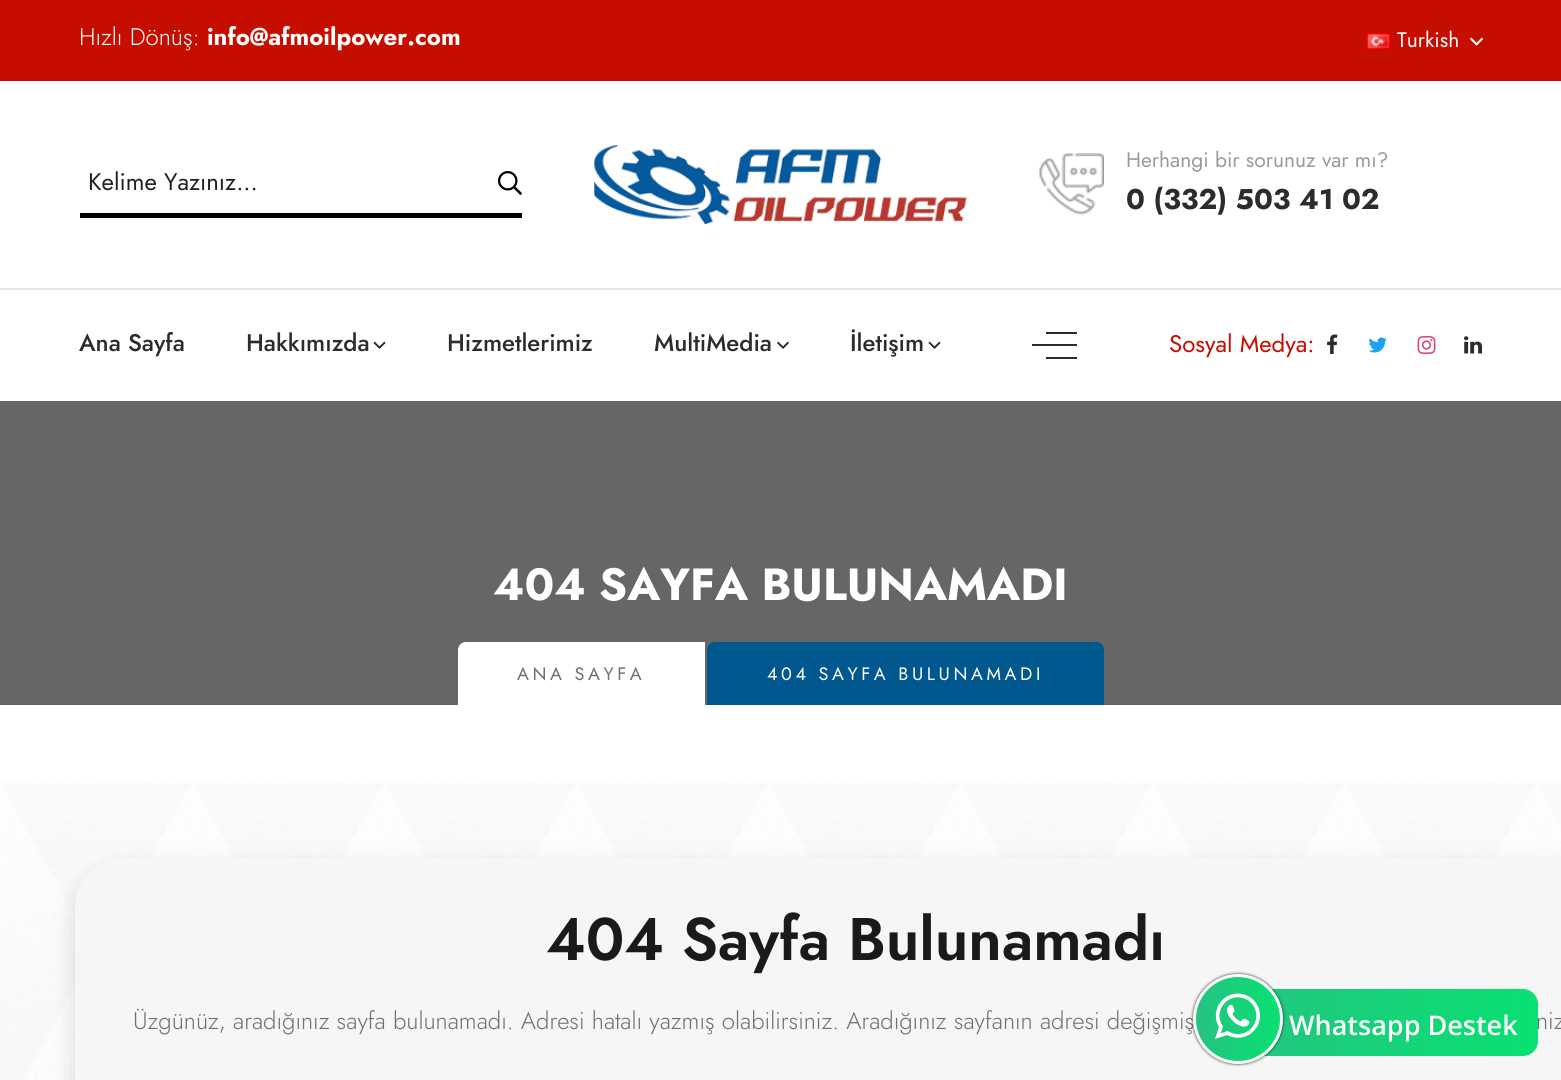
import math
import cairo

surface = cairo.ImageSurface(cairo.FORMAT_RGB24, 1561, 1080)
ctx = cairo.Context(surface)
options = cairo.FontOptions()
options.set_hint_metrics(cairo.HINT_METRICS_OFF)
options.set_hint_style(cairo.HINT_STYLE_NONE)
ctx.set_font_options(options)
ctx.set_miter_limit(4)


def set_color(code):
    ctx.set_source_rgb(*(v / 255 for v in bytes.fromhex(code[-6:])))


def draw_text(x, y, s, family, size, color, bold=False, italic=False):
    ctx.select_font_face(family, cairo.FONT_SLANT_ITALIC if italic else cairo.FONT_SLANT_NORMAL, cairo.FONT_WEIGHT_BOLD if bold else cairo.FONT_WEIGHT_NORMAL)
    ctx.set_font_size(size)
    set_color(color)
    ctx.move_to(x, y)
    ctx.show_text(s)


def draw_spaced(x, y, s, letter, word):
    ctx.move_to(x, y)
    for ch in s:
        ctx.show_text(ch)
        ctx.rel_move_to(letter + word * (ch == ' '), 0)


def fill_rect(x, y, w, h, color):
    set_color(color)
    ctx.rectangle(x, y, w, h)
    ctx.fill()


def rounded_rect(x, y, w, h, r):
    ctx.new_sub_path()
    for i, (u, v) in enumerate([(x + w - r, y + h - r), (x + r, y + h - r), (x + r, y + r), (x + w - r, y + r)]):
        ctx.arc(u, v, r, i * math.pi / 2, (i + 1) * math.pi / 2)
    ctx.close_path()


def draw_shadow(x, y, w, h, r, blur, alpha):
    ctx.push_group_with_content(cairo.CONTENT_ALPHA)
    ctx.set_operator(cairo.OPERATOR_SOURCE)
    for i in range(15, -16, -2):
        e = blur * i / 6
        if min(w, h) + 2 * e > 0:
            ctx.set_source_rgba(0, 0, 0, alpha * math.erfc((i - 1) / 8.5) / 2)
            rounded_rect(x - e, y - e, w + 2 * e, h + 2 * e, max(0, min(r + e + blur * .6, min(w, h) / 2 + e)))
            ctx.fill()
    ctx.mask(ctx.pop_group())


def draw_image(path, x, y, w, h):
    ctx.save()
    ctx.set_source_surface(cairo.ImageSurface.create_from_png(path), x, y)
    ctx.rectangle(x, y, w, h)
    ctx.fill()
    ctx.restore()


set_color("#ffffff")
ctx.paint()
fill_rect(0, 0, 1561, 81, "#c60e00")
draw_text(79, 45, "Hızlı Dönüş:", "Jost Light", 24, "#ffffff")
draw_text(207, 45, "info@afmoilpower.com", "Jost", 24, "#ffffff", bold=True)
draw_image("assets/img1.png", 1366, 33, 25, 17)
draw_text(1397, 47, "Turkish", "Jost", 21, "#ffffff")
draw_image("assets/img2.png", 1470, 37, 14, 9)
fill_rect(0, 288, 1561, 2, "#e6e6e6")
fill_rect(80, 213, 442, 5, "#000000")
draw_text(88, 190, "Kelime Yazınız...", "Jost", 24, "#212121")
draw_image("assets/img3.png", 498, 171, 24, 24)
draw_image("assets/img4.png", 594, 145, 373, 80)
draw_image("assets/img5.png", 1039, 153, 65, 62)
draw_text(1126, 167, "Herhangi bir sorunuz var mı?", "Jost", 21, "#9a9a9a")
draw_text(1126, 209, "0 (332) 503 41 02", "Jost", 28.5, "#2c2c2c", bold=True)
draw_text(79, 351, "Ana Sayfa", "Jost Medium", 24, "#2c2c2c")
draw_text(246, 351, "Hakkımızda", "Jost Medium", 24, "#2c2c2c")
draw_image("assets/img6.png", 373, 341, 13, 8)
draw_text(447, 351, "Hizmetlerimiz", "Jost Medium", 24, "#2c2c2c")
draw_text(654, 351, "MultiMedia", "Jost Medium", 24, "#2c2c2c")
draw_image("assets/img7.png", 777, 341, 12, 8)
draw_text(850, 351, "İletişim", "Jost Medium", 24, "#2c2c2c")
draw_image("assets/img6.png", 928, 341, 13, 8)
fill_rect(1046, 332, 31, 2, "#2c2c2c")
fill_rect(1032, 344, 45, 2, "#2c2c2c")
fill_rect(1046, 357, 31, 2, "#2c2c2c")
draw_text(1169, 352, "Sosyal Medya:", "Jost", 24, "#c60e00")
draw_image("assets/img8.png", 1327, 334, 11, 20)
draw_image("assets/img9.png", 1368, 337, 19, 16)
draw_image("assets/img10.png", 1417, 336, 19, 18)
draw_image("assets/img11.png", 1464, 336, 18, 18)
fill_rect(0, 401, 1561, 304, "#666666")
draw_text(493, 600, "404 SAYFA BULUNAMADI", "Jost", 45, "#ffffff", bold=True)
ctx.new_path()
ctx.move_to(466, 642)
ctx.line_to(705, 642)
ctx.line_to(705, 705)
ctx.line_to(458, 705)
ctx.line_to(458, 650)
ctx.curve_to(458, 645.5, 461.5, 642, 466, 642)
ctx.close_path()
ctx.fill()
ctx.select_font_face("Jost")
ctx.set_font_size(18)
set_color("#707070")
draw_spaced(517, 680, "ANA SAYFA", 3.6, 0)
set_color("#00588e")
ctx.new_path()
ctx.move_to(715, 642)
ctx.line_to(1096, 642)
ctx.curve_to(1100.5, 642, 1104, 645.5, 1104, 650)
ctx.line_to(1104, 705)
ctx.line_to(707, 705)
ctx.line_to(707, 650)
ctx.curve_to(707, 645.5, 710.5, 642, 715, 642)
ctx.close_path()
ctx.fill()
set_color("#ffffff")
draw_spaced(767, 680, "404 SAYFA BULUNAMADI", 3.6, 0)
draw_image("assets/img12.png", 0, 783, 1561, 297)
set_color("#000000")
draw_shadow(75, 870, 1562, 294, 48, 12, 0.15)
set_color("#f7f6f7")
rounded_rect(75, 858, 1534, 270, 48)
ctx.fill()
draw_text(546, 960, "404 Sayfa Bulunamadı", "Jost SemiBold", 60, "#1a1a1a")
draw_text(133, 1029, "Üzgünüz, aradığınız sayfa bulunamadı. Adresi hatalı yazmış olabilirsiniz. Aradığınız sayfanın adresi değişmiş", "Jost Light", 24, "#707070")
draw_text(1536, 1029, "niz", "Jost Light", 24, "#707070")
gradient = cairo.LinearGradient(1206, 1022, 1538, 1022)
gradient.add_color_stop_rgba(0, 0.149, 0.761, 0.506, 1)
gradient.add_color_stop_rgba(1, 0.035, 0.878, 0.447, 1)
ctx.set_source(gradient)
rounded_rect(1206, 989, 332, 67, 15)
ctx.fill()
set_color("#222222")
draw_shadow(1193, 974, 90, 90, 45, 1.5, 1)
ctx.save()
rounded_rect(1193, 974, 90, 90, 45)
ctx.clip()
gradient = cairo.LinearGradient(1196, 1019, 1280, 1019)
gradient.add_color_stop_rgba(0, 0.149, 0.761, 0.506, 1)
gradient.add_color_stop_rgba(1, 0.035, 0.878, 0.447, 1)
ctx.set_source(gradient)
ctx.rectangle(1196, 974, 84, 90)
ctx.fill()
ctx.restore()
ctx.arc(1238, 1019, 43.5, 0, 2 * math.pi)
set_color("#ffffff")
ctx.set_line_width(3)
ctx.stroke()
draw_image("assets/img13.png", 1215, 993, 45, 46)
draw_text(1289, 1035, "Whatsapp Destek", "Open Sans SemiBold", 27, "#ffffff")
surface.write_to_png("output.png")
